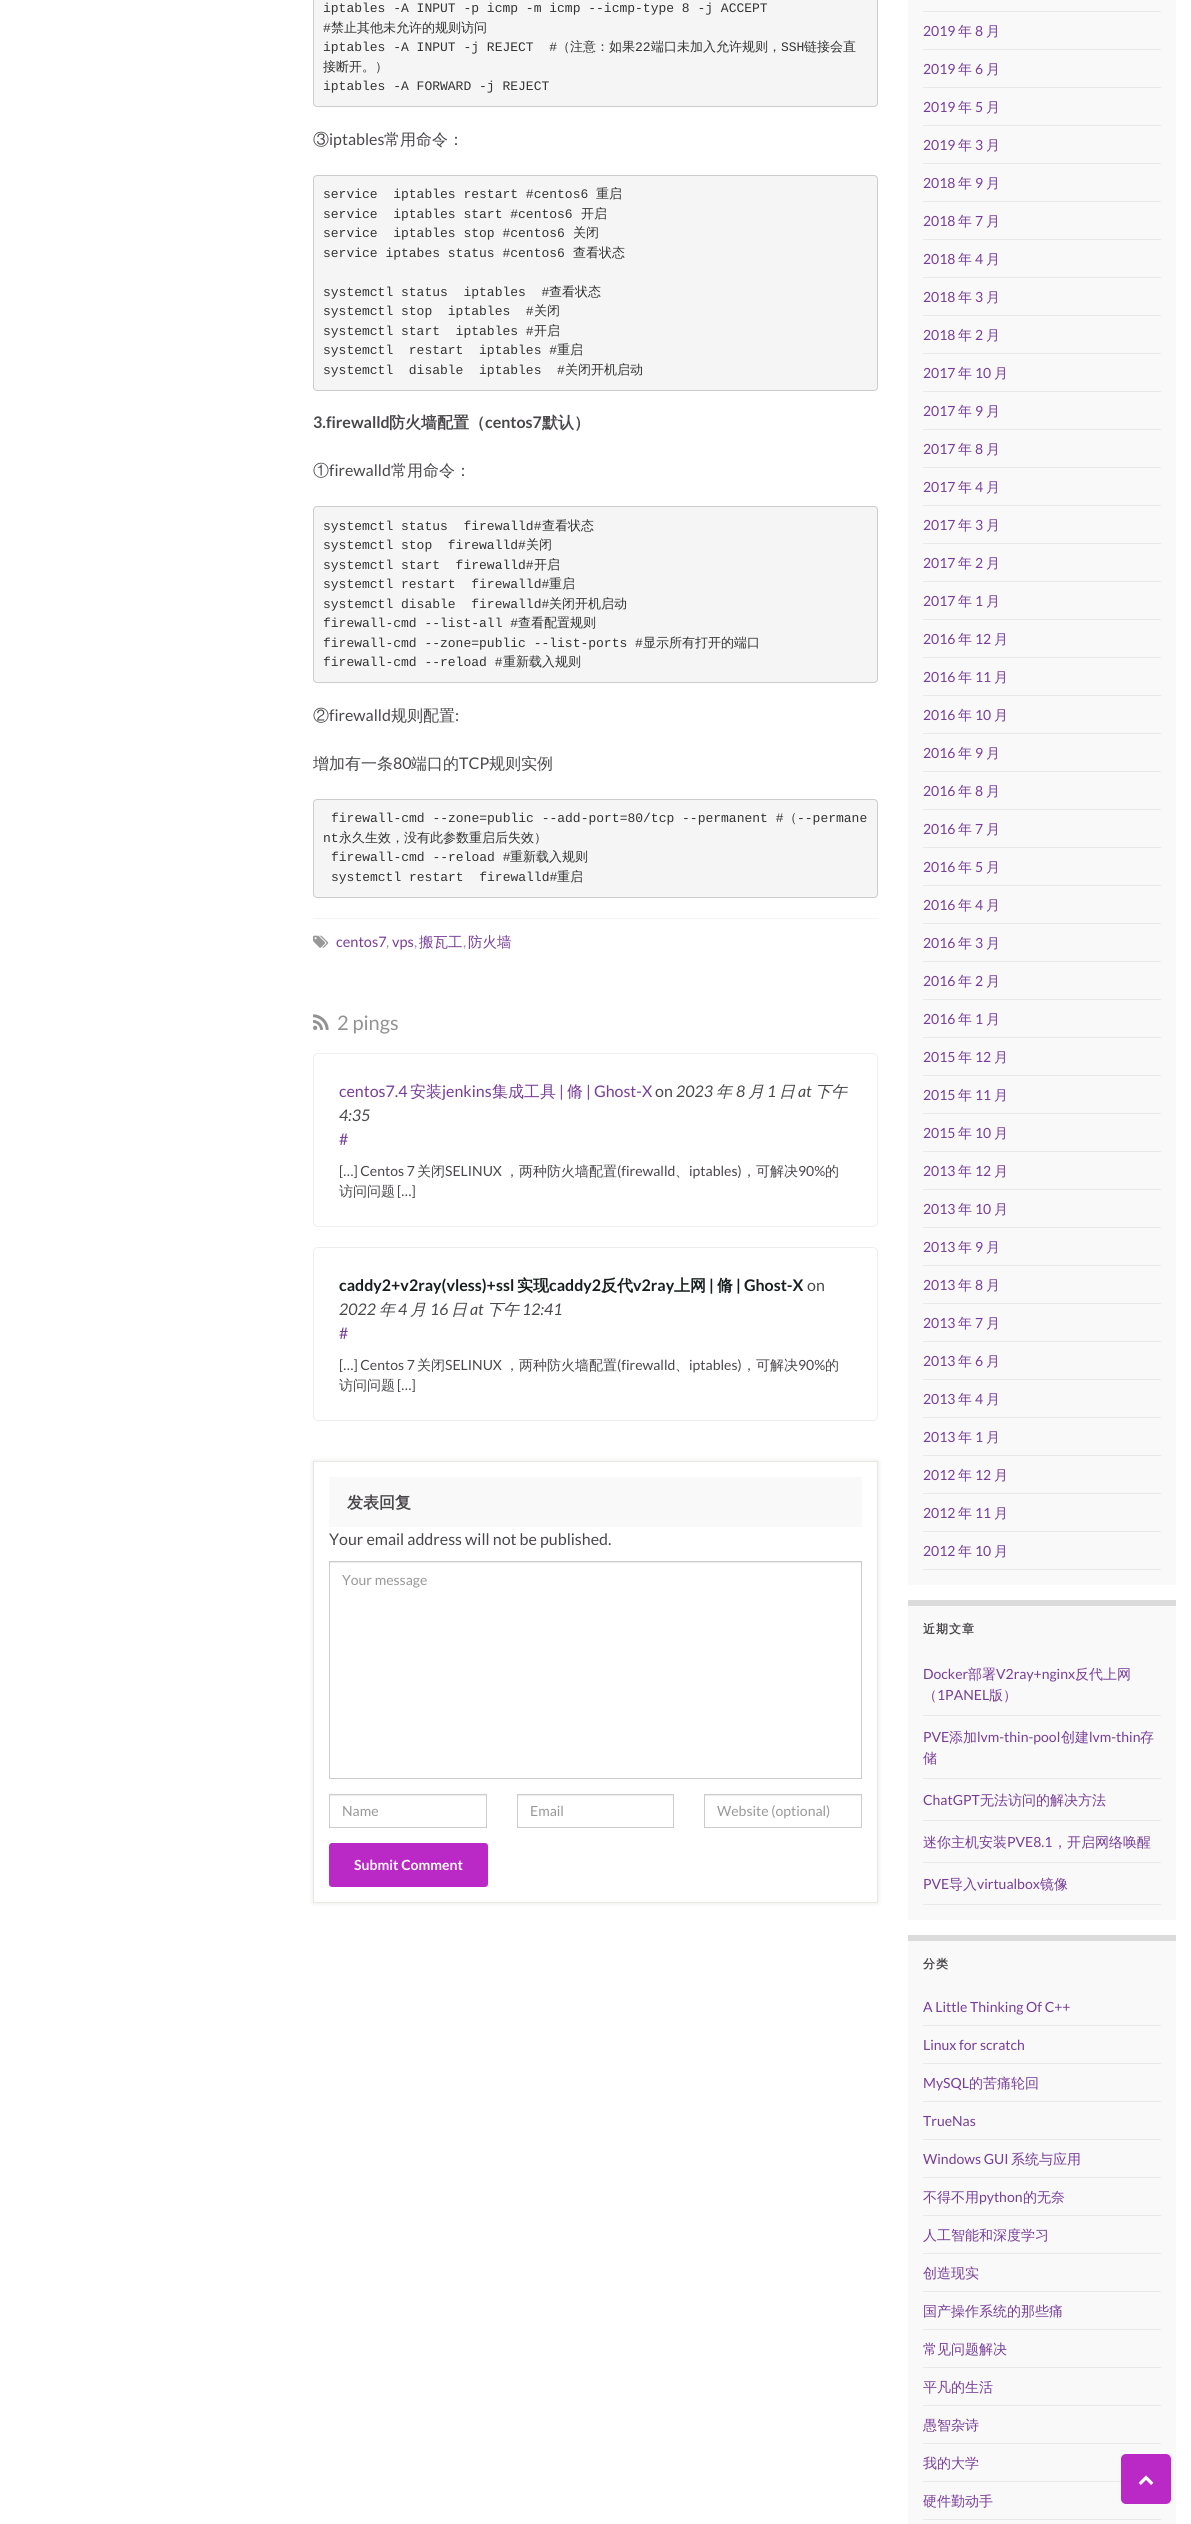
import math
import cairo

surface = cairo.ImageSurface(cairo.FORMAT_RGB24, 1191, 2524)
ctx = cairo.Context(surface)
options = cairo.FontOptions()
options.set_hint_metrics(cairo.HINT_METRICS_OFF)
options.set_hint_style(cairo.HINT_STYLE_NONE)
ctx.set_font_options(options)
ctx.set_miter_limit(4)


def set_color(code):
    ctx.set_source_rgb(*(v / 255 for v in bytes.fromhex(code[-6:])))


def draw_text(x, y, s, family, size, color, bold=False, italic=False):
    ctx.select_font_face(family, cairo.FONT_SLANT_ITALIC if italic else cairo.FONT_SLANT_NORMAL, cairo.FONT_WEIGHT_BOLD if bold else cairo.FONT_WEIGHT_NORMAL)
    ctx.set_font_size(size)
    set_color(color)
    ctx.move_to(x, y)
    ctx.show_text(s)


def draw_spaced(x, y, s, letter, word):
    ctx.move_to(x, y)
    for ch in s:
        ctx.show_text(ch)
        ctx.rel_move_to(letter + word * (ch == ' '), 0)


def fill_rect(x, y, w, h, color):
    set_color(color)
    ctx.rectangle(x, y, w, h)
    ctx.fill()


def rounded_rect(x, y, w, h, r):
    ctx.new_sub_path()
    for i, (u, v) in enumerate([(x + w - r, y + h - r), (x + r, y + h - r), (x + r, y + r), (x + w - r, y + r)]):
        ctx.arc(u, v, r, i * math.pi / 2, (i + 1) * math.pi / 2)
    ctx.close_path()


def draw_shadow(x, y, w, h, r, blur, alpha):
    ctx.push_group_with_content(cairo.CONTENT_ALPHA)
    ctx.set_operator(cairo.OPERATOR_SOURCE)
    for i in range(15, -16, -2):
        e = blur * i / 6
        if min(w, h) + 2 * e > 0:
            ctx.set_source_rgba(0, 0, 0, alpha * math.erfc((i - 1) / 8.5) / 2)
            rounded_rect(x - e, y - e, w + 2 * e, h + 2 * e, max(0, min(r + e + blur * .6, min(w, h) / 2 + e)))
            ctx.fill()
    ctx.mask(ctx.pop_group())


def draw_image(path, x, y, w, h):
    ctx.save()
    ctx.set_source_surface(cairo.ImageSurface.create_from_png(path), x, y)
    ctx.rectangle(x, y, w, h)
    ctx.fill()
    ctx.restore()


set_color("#ffffff")
ctx.paint()
set_color("#f5f5f5")
rounded_rect(313.5, -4.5, 564, 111, 3.5)
ctx.fill_preserve()
set_color("#cccccc")
ctx.set_line_width(1)
ctx.stroke()
draw_text(323, 12, "iptables -A INPUT -p icmp -m icmp --icmp-type 8 -j ACCEPT", "Liberation Mono", 13, "#333333")
draw_text(323, 32, "#", "Liberation Mono", 13, "#333333")
draw_text(331, 32, "禁止其他未允许的规则访问", "WenQuanYi Zen Hei Medium", 13, "#333333")
draw_text(323, 51, "iptables -A INPUT -j REJECT  #", "Liberation Mono", 13, "#333333")
draw_text(557, 51, "（注意：如果", "WenQuanYi Zen Hei Medium", 13, "#333333")
draw_text(635, 51, "22", "Liberation Mono", 13, "#333333")
draw_text(651, 51, "端口未加入允许规则，", "WenQuanYi Zen Hei Medium", 13, "#333333")
draw_text(781, 51, "SSH", "Liberation Mono", 13, "#333333")
draw_text(804, 51, "链接会直", "WenQuanYi Zen Hei Medium", 13, "#333333")
draw_text(323, 71, "接断开。）", "WenQuanYi Zen Hei Medium", 13, "#333333")
draw_text(323, 90, "iptables -A FORWARD -j REJECT", "Liberation Mono", 13, "#333333")
draw_text(313, 145, "③", "WenQuanYi Zen Hei Medium", 16, "#4a474b")
draw_text(329, 145, "iptables", "Lato", 16, "#4a474b")
draw_text(384, 145, "常用命令：", "WenQuanYi Zen Hei Medium", 16, "#4a474b")
set_color("#f5f5f5")
rounded_rect(313.5, 175.5, 564, 215, 3.5)
ctx.fill_preserve()
set_color("#cccccc")
ctx.stroke()
draw_text(323, 198, "service  iptables restart #centos6", "Liberation Mono", 13, "#333333")
draw_text(596, 198, "重启", "WenQuanYi Zen Hei Medium", 13, "#333333")
draw_text(323, 218, "service  iptables start #centos6", "Liberation Mono", 13, "#333333")
draw_text(581, 218, "开启", "WenQuanYi Zen Hei Medium", 13, "#333333")
draw_text(323, 237, "service  iptables stop #centos6", "Liberation Mono", 13, "#333333")
draw_text(573, 237, "关闭", "WenQuanYi Zen Hei Medium", 13, "#333333")
draw_text(323, 257, "service iptabes status #centos6", "Liberation Mono", 13, "#333333")
draw_text(573, 257, "查看状态", "WenQuanYi Zen Hei Medium", 13, "#333333")
draw_text(323, 296, "systemctl status  iptables  #", "Liberation Mono", 13, "#333333")
draw_text(549, 296, "查看状态", "WenQuanYi Zen Hei Medium", 13, "#333333")
draw_text(323, 315, "systemctl stop  iptables  #", "Liberation Mono", 13, "#333333")
draw_text(534, 315, "关闭", "WenQuanYi Zen Hei Medium", 13, "#333333")
draw_text(323, 335, "systemctl start  iptables #", "Liberation Mono", 13, "#333333")
draw_text(534, 335, "开启", "WenQuanYi Zen Hei Medium", 13, "#333333")
draw_text(323, 354, "systemctl  restart  iptables #", "Liberation Mono", 13, "#333333")
draw_text(557, 354, "重启", "WenQuanYi Zen Hei Medium", 13, "#333333")
draw_text(323, 374, "systemctl  disable  iptables  #", "Liberation Mono", 13, "#333333")
draw_text(565, 374, "关闭开机启动", "WenQuanYi Zen Hei Medium", 13, "#333333")
draw_text(313, 428, "3.firewalld", "Lato", 16, "#4a474b", bold=True)
draw_text(389, 428, "防火墙配置（", "WenQuanYi Zen Hei", 16, "#4a474b", bold=True)
draw_text(485, 428, "centos7", "Lato", 16, "#4a474b", bold=True)
draw_text(542, 428, "默认）", "WenQuanYi Zen Hei", 16, "#4a474b", bold=True)
draw_text(313, 476, "①", "WenQuanYi Zen Hei Medium", 16, "#4a474b")
draw_text(329, 476, "firewalld", "Lato", 16, "#4a474b")
draw_text(391, 476, "常用命令：", "WenQuanYi Zen Hei Medium", 16, "#4a474b")
set_color("#f5f5f5")
rounded_rect(313.5, 506.5, 564, 176, 3.5)
ctx.fill_preserve()
set_color("#cccccc")
ctx.stroke()
draw_text(323, 530, "systemctl status  firewalld#", "Liberation Mono", 13, "#333333")
draw_text(542, 530, "查看状态", "WenQuanYi Zen Hei Medium", 13, "#333333")
draw_text(323, 549, "systemctl stop  firewalld#", "Liberation Mono", 13, "#333333")
draw_text(526, 549, "关闭", "WenQuanYi Zen Hei Medium", 13, "#333333")
draw_text(323, 569, "systemctl start  firewalld#", "Liberation Mono", 13, "#333333")
draw_text(534, 569, "开启", "WenQuanYi Zen Hei Medium", 13, "#333333")
draw_text(323, 588, "systemctl restart  firewalld#", "Liberation Mono", 13, "#333333")
draw_text(549, 588, "重启", "WenQuanYi Zen Hei Medium", 13, "#333333")
draw_text(323, 608, "systemctl disable  firewalld#", "Liberation Mono", 13, "#333333")
draw_text(549, 608, "关闭开机启动", "WenQuanYi Zen Hei Medium", 13, "#333333")
draw_text(323, 627, "firewall-cmd --list-all #", "Liberation Mono", 13, "#333333")
draw_text(518, 627, "查看配置规则", "WenQuanYi Zen Hei Medium", 13, "#333333")
draw_text(323, 647, "firewall-cmd --zone=public --list-ports #", "Liberation Mono", 13, "#333333")
draw_text(643, 647, "显示所有打开的端口", "WenQuanYi Zen Hei Medium", 13, "#333333")
draw_text(323, 666, "firewall-cmd --reload #", "Liberation Mono", 13, "#333333")
draw_text(503, 666, "重新载入规则", "WenQuanYi Zen Hei Medium", 13, "#333333")
draw_text(313, 721, "②", "WenQuanYi Zen Hei Medium", 16, "#4a474b")
draw_text(329, 721, "firewalld", "Lato", 16, "#4a474b")
draw_text(391, 721, "规则配置", "WenQuanYi Zen Hei Medium", 16, "#4a474b")
draw_text(455, 721, ":", "Lato", 16, "#4a474b")
draw_text(313, 769, "增加有一条", "WenQuanYi Zen Hei Medium", 16, "#4a474b")
draw_text(393, 769, "80", "Lato", 16, "#4a474b")
draw_text(411, 769, "端口的", "WenQuanYi Zen Hei Medium", 16, "#4a474b")
draw_text(459, 769, "TCP", "Lato", 16, "#4a474b")
draw_text(489, 769, "规则实例", "WenQuanYi Zen Hei Medium", 16, "#4a474b")
set_color("#f5f5f5")
rounded_rect(313.5, 799.5, 564, 98, 3.5)
ctx.fill_preserve()
set_color("#cccccc")
ctx.stroke()
draw_text(331, 822, "firewall-cmd --zone=public --add-port=80/tcp --permanent #", "Liberation Mono", 13, "#333333")
draw_text(784, 822, "（", "WenQuanYi Zen Hei Medium", 13, "#333333")
draw_text(797, 822, "--permane", "Liberation Mono", 13, "#333333")
draw_text(323, 842, "nt", "Liberation Mono", 13, "#333333")
draw_text(339, 842, "永久生效，没有此参数重启后失效）", "WenQuanYi Zen Hei Medium", 13, "#333333")
draw_text(331, 861, "firewall-cmd --reload #", "Liberation Mono", 13, "#333333")
draw_text(510, 861, "重新载入规则", "WenQuanYi Zen Hei Medium", 13, "#333333")
draw_text(331, 881, "systemctl restart  firewalld#", "Liberation Mono", 13, "#333333")
draw_text(557, 881, "重启", "WenQuanYi Zen Hei Medium", 13, "#333333")
fill_rect(313, 918, 565, 1, "#f5f5f5")
draw_image("assets/img1.png", 313, 935, 16, 13)
draw_text(336, 947, "centos7", "Lato", 14.5, "#783d98")
draw_text(386, 947, ",", "Lato", 14.5, "#989898")
draw_text(392, 947, "vps", "Lato", 14.5, "#783d98")
draw_text(414, 947, ",", "Lato", 14.5, "#989898")
draw_text(419, 947, "搬瓦工", "WenQuanYi Zen Hei Medium", 14.5, "#783d98")
draw_text(463, 947, ",", "Lato", 14.5, "#989898")
draw_text(468, 947, "防火墙", "WenQuanYi Zen Hei Medium", 14.5, "#783d98")
draw_image("assets/img2.png", 313, 1014, 16, 16)
draw_text(337, 1030, "2 pings", "Lato", 20, "#929292")
rounded_rect(313.5, 1053.5, 564, 173, 4.5)
set_color("#eeeeee")
ctx.stroke()
draw_text(339, 1097, "centos7.4", "Lato", 16, "#783d98")
draw_text(410, 1097, "安装", "WenQuanYi Zen Hei Medium", 16, "#783d98")
draw_text(442, 1097, "jenkins", "Lato", 16, "#783d98")
draw_text(492, 1097, "集成工具", "WenQuanYi Zen Hei Medium", 16, "#783d98")
draw_text(559, 1097, "|", "Lato", 16, "#783d98")
draw_text(567, 1097, "脩", "WenQuanYi Zen Hei Medium", 16, "#783d98")
draw_text(586, 1097, "| Ghost-X", "Lato", 16, "#783d98")
draw_text(655, 1097, "on", "Lato", 16, "#4a474b")
draw_text(676, 1097, "2023", "Lato", 16, "#4a474b", italic=True)
draw_text(716, 1097, "年", "WenQuanYi Zen Hei Medium", 16, "#4a474b", italic=True)
draw_text(736, 1097, "8", "Lato", 16, "#4a474b", italic=True)
draw_text(748, 1097, "月", "WenQuanYi Zen Hei Medium", 16, "#4a474b", italic=True)
draw_text(767, 1097, "1", "Lato", 16, "#4a474b", italic=True)
draw_text(779, 1097, "日", "WenQuanYi Zen Hei Medium", 16, "#4a474b", italic=True)
draw_text(798, 1097, "at", "Lato", 16, "#4a474b", italic=True)
draw_text(815, 1097, "下午", "WenQuanYi Zen Hei Medium", 16, "#4a474b", italic=True)
draw_text(339, 1121, "4:35", "Lato", 16, "#4a474b", italic=True)
draw_text(339, 1145, "#", "Lato", 16, "#783d98")
draw_text(339, 1176, "[…] Centos 7", "Lato", 14, "#4a474b")
draw_text(417, 1176, "关闭", "WenQuanYi Zen Hei Medium", 14, "#4a474b")
draw_text(445, 1176, "SELINUX", "Lato", 14, "#4a474b")
draw_text(505, 1176, "，两种防火墙配置", "WenQuanYi Zen Hei Medium", 14, "#4a474b")
draw_text(617, 1176, "(firewalld", "Lato", 14, "#4a474b")
draw_text(675, 1176, "、", "WenQuanYi Zen Hei Medium", 14, "#4a474b")
draw_text(689, 1176, "iptables)", "Lato", 14, "#4a474b")
draw_text(742, 1176, "，可解决", "WenQuanYi Zen Hei Medium", 14, "#4a474b")
draw_text(798, 1176, "90%", "Lato", 14, "#4a474b")
draw_text(825, 1176, "的", "WenQuanYi Zen Hei Medium", 14, "#4a474b")
draw_text(339, 1196, "访问问题", "WenQuanYi Zen Hei Medium", 14, "#4a474b")
draw_text(397, 1196, "[…]", "Lato", 14, "#4a474b")
rounded_rect(313.5, 1247.5, 564, 173, 4.5)
set_color("#eeeeee")
ctx.stroke()
draw_text(339, 1291, "caddy2+v2ray(vless)+ssl", "Lato", 16, "#181e1f", bold=True)
draw_text(517, 1291, "实现", "WenQuanYi Zen Hei", 16, "#181e1f", bold=True)
draw_text(549, 1291, "caddy2", "Lato", 16, "#181e1f", bold=True)
draw_text(601, 1291, "反代", "WenQuanYi Zen Hei", 16, "#181e1f", bold=True)
draw_text(633, 1291, "v2ray", "Lato", 16, "#181e1f", bold=True)
draw_text(674, 1291, "上网", "WenQuanYi Zen Hei", 16, "#181e1f", bold=True)
draw_text(709, 1291, "|", "Lato", 16, "#181e1f", bold=True)
draw_text(717, 1291, "脩", "WenQuanYi Zen Hei", 16, "#181e1f", bold=True)
draw_text(736, 1291, "| Ghost-X", "Lato", 16, "#181e1f", bold=True)
draw_text(807, 1291, "on", "Lato", 16, "#4a474b")
draw_text(339, 1315, "2022", "Lato", 16, "#4a474b", italic=True)
draw_text(379, 1315, "年", "WenQuanYi Zen Hei Medium", 16, "#4a474b", italic=True)
draw_text(398, 1315, "4", "Lato", 16, "#4a474b", italic=True)
draw_text(410, 1315, "月", "WenQuanYi Zen Hei Medium", 16, "#4a474b", italic=True)
draw_text(430, 1315, "16", "Lato", 16, "#4a474b", italic=True)
draw_text(451, 1315, "日", "WenQuanYi Zen Hei Medium", 16, "#4a474b", italic=True)
draw_text(470, 1315, "at", "Lato", 16, "#4a474b", italic=True)
draw_text(487, 1315, "下午", "WenQuanYi Zen Hei Medium", 16, "#4a474b", italic=True)
draw_text(522, 1315, "12:41", "Lato", 16, "#4a474b", italic=True)
draw_text(339, 1339, "#", "Lato", 16, "#783d98")
draw_text(339, 1370, "[…] Centos 7", "Lato", 14, "#4a474b")
draw_text(417, 1370, "关闭", "WenQuanYi Zen Hei Medium", 14, "#4a474b")
draw_text(445, 1370, "SELINUX", "Lato", 14, "#4a474b")
draw_text(505, 1370, "，两种防火墙配置", "WenQuanYi Zen Hei Medium", 14, "#4a474b")
draw_text(617, 1370, "(firewalld", "Lato", 14, "#4a474b")
draw_text(675, 1370, "、", "WenQuanYi Zen Hei Medium", 14, "#4a474b")
draw_text(689, 1370, "iptables)", "Lato", 14, "#4a474b")
draw_text(742, 1370, "，可解决", "WenQuanYi Zen Hei Medium", 14, "#4a474b")
draw_text(798, 1370, "90%", "Lato", 14, "#4a474b")
draw_text(825, 1370, "的", "WenQuanYi Zen Hei Medium", 14, "#4a474b")
draw_text(339, 1390, "访问问题", "WenQuanYi Zen Hei Medium", 14, "#4a474b")
draw_text(397, 1390, "[…]", "Lato", 14, "#4a474b")
ctx.save()
ctx.set_fill_rule(cairo.FILL_RULE_EVEN_ODD)
ctx.new_path()
ctx.move_to(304, 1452)
ctx.line_to(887, 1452)
ctx.line_to(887, 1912)
ctx.line_to(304, 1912)
ctx.close_path()
ctx.move_to(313, 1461)
ctx.line_to(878, 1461)
ctx.line_to(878, 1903)
ctx.line_to(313, 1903)
ctx.close_path()
ctx.clip()
set_color("#000000")
draw_shadow(313, 1461, 565, 442, 0, 2.5, 0.1)
ctx.restore()
ctx.rectangle(313.5, 1461.5, 564, 441)
set_color("#e9e8e3")
ctx.stroke()
fill_rect(329, 1477, 533, 50, "#f9f9f9")
draw_text(347, 1508, "发表回复", "WenQuanYi Zen Hei", 16, "#4a474b", bold=True)
draw_text(329, 1545, "Your email address will not be published.", "Lato", 16, "#4a474b")
fill_rect(330, 1562, 531, 1, "#ececec")
ctx.rectangle(329.5, 1561.5, 532, 217)
set_color("#cccccc")
ctx.stroke()
draw_text(342, 1585, "Your message", "Lato", 14, "#989898")
fill_rect(330, 1795, 156, 1, "#ececec")
ctx.rectangle(329.5, 1794.5, 157, 33)
set_color("#cccccc")
ctx.stroke()
draw_text(342, 1816, "Name", "Lato", 14, "#989898")
fill_rect(518, 1795, 155, 1, "#ececec")
ctx.rectangle(517.5, 1794.5, 156, 33)
set_color("#cccccc")
ctx.stroke()
draw_text(530, 1816, "Email", "Lato", 14, "#989898")
fill_rect(705, 1795, 156, 1, "#ececec")
ctx.rectangle(704.5, 1794.5, 157, 33)
set_color("#cccccc")
ctx.stroke()
draw_text(717, 1816, "Website (optional)", "Lato", 14, "#989898")
set_color("#ba29c5")
rounded_rect(329, 1843, 159, 44, 3)
ctx.fill()
draw_text(354, 1870, "Submit Comment", "Lato", 14, "#ffffff", bold=True)
fill_rect(908, 0, 268, 1585, "#f9f9f9")
fill_rect(923, 11, 238, 1, "#e9e9e9")
fill_rect(923, 49, 238, 1, "#e9e9e9")
draw_text(923, 36, "2019", "Lato", 14, "#783d98")
draw_text(958, 36, "年", "WenQuanYi Zen Hei Medium", 14, "#783d98")
draw_text(975, 36, "8", "Lato", 14, "#783d98")
draw_text(986, 36, "月", "WenQuanYi Zen Hei Medium", 14, "#783d98")
fill_rect(923, 87, 238, 1, "#e9e9e9")
draw_text(923, 74, "2019", "Lato", 14, "#783d98")
draw_text(958, 74, "年", "WenQuanYi Zen Hei Medium", 14, "#783d98")
draw_text(975, 74, "6", "Lato", 14, "#783d98")
draw_text(986, 74, "月", "WenQuanYi Zen Hei Medium", 14, "#783d98")
fill_rect(923, 125, 238, 1, "#e9e9e9")
draw_text(923, 112, "2019", "Lato", 14, "#783d98")
draw_text(958, 112, "年", "WenQuanYi Zen Hei Medium", 14, "#783d98")
draw_text(975, 112, "5", "Lato", 14, "#783d98")
draw_text(986, 112, "月", "WenQuanYi Zen Hei Medium", 14, "#783d98")
fill_rect(923, 163, 238, 1, "#e9e9e9")
draw_text(923, 150, "2019", "Lato", 14, "#783d98")
draw_text(958, 150, "年", "WenQuanYi Zen Hei Medium", 14, "#783d98")
draw_text(975, 150, "3", "Lato", 14, "#783d98")
draw_text(986, 150, "月", "WenQuanYi Zen Hei Medium", 14, "#783d98")
fill_rect(923, 201, 238, 1, "#e9e9e9")
draw_text(923, 188, "2018", "Lato", 14, "#783d98")
draw_text(958, 188, "年", "WenQuanYi Zen Hei Medium", 14, "#783d98")
draw_text(975, 188, "9", "Lato", 14, "#783d98")
draw_text(986, 188, "月", "WenQuanYi Zen Hei Medium", 14, "#783d98")
fill_rect(923, 239, 238, 1, "#e9e9e9")
draw_text(923, 226, "2018", "Lato", 14, "#783d98")
draw_text(958, 226, "年", "WenQuanYi Zen Hei Medium", 14, "#783d98")
draw_text(975, 226, "7", "Lato", 14, "#783d98")
draw_text(986, 226, "月", "WenQuanYi Zen Hei Medium", 14, "#783d98")
fill_rect(923, 277, 238, 1, "#e9e9e9")
draw_text(923, 264, "2018", "Lato", 14, "#783d98")
draw_text(958, 264, "年", "WenQuanYi Zen Hei Medium", 14, "#783d98")
draw_text(975, 264, "4", "Lato", 14, "#783d98")
draw_text(986, 264, "月", "WenQuanYi Zen Hei Medium", 14, "#783d98")
fill_rect(923, 315, 238, 1, "#e9e9e9")
draw_text(923, 302, "2018", "Lato", 14, "#783d98")
draw_text(958, 302, "年", "WenQuanYi Zen Hei Medium", 14, "#783d98")
draw_text(975, 302, "3", "Lato", 14, "#783d98")
draw_text(986, 302, "月", "WenQuanYi Zen Hei Medium", 14, "#783d98")
fill_rect(923, 353, 238, 1, "#e9e9e9")
draw_text(923, 340, "2018", "Lato", 14, "#783d98")
draw_text(958, 340, "年", "WenQuanYi Zen Hei Medium", 14, "#783d98")
draw_text(975, 340, "2", "Lato", 14, "#783d98")
draw_text(986, 340, "月", "WenQuanYi Zen Hei Medium", 14, "#783d98")
fill_rect(923, 391, 238, 1, "#e9e9e9")
draw_text(923, 378, "2017", "Lato", 14, "#783d98")
draw_text(958, 378, "年", "WenQuanYi Zen Hei Medium", 14, "#783d98")
draw_text(975, 378, "10", "Lato", 14, "#783d98")
draw_text(994, 378, "月", "WenQuanYi Zen Hei Medium", 14, "#783d98")
fill_rect(923, 429, 238, 1, "#e9e9e9")
draw_text(923, 416, "2017", "Lato", 14, "#783d98")
draw_text(958, 416, "年", "WenQuanYi Zen Hei Medium", 14, "#783d98")
draw_text(975, 416, "9", "Lato", 14, "#783d98")
draw_text(986, 416, "月", "WenQuanYi Zen Hei Medium", 14, "#783d98")
fill_rect(923, 467, 238, 1, "#e9e9e9")
draw_text(923, 454, "2017", "Lato", 14, "#783d98")
draw_text(958, 454, "年", "WenQuanYi Zen Hei Medium", 14, "#783d98")
draw_text(975, 454, "8", "Lato", 14, "#783d98")
draw_text(986, 454, "月", "WenQuanYi Zen Hei Medium", 14, "#783d98")
fill_rect(923, 505, 238, 1, "#e9e9e9")
draw_text(923, 492, "2017", "Lato", 14, "#783d98")
draw_text(958, 492, "年", "WenQuanYi Zen Hei Medium", 14, "#783d98")
draw_text(975, 492, "4", "Lato", 14, "#783d98")
draw_text(986, 492, "月", "WenQuanYi Zen Hei Medium", 14, "#783d98")
fill_rect(923, 543, 238, 1, "#e9e9e9")
draw_text(923, 530, "2017", "Lato", 14, "#783d98")
draw_text(958, 530, "年", "WenQuanYi Zen Hei Medium", 14, "#783d98")
draw_text(975, 530, "3", "Lato", 14, "#783d98")
draw_text(986, 530, "月", "WenQuanYi Zen Hei Medium", 14, "#783d98")
fill_rect(923, 581, 238, 1, "#e9e9e9")
draw_text(923, 568, "2017", "Lato", 14, "#783d98")
draw_text(958, 568, "年", "WenQuanYi Zen Hei Medium", 14, "#783d98")
draw_text(975, 568, "2", "Lato", 14, "#783d98")
draw_text(986, 568, "月", "WenQuanYi Zen Hei Medium", 14, "#783d98")
fill_rect(923, 619, 238, 1, "#e9e9e9")
draw_text(923, 606, "2017", "Lato", 14, "#783d98")
draw_text(958, 606, "年", "WenQuanYi Zen Hei Medium", 14, "#783d98")
draw_text(975, 606, "1", "Lato", 14, "#783d98")
draw_text(986, 606, "月", "WenQuanYi Zen Hei Medium", 14, "#783d98")
fill_rect(923, 657, 238, 1, "#e9e9e9")
draw_text(923, 644, "2016", "Lato", 14, "#783d98")
draw_text(958, 644, "年", "WenQuanYi Zen Hei Medium", 14, "#783d98")
draw_text(975, 644, "12", "Lato", 14, "#783d98")
draw_text(994, 644, "月", "WenQuanYi Zen Hei Medium", 14, "#783d98")
fill_rect(923, 695, 238, 1, "#e9e9e9")
draw_text(923, 682, "2016", "Lato", 14, "#783d98")
draw_text(958, 682, "年", "WenQuanYi Zen Hei Medium", 14, "#783d98")
draw_text(975, 682, "11", "Lato", 14, "#783d98")
draw_text(994, 682, "月", "WenQuanYi Zen Hei Medium", 14, "#783d98")
fill_rect(923, 733, 238, 1, "#e9e9e9")
draw_text(923, 720, "2016", "Lato", 14, "#783d98")
draw_text(958, 720, "年", "WenQuanYi Zen Hei Medium", 14, "#783d98")
draw_text(975, 720, "10", "Lato", 14, "#783d98")
draw_text(994, 720, "月", "WenQuanYi Zen Hei Medium", 14, "#783d98")
fill_rect(923, 771, 238, 1, "#e9e9e9")
draw_text(923, 758, "2016", "Lato", 14, "#783d98")
draw_text(958, 758, "年", "WenQuanYi Zen Hei Medium", 14, "#783d98")
draw_text(975, 758, "9", "Lato", 14, "#783d98")
draw_text(986, 758, "月", "WenQuanYi Zen Hei Medium", 14, "#783d98")
fill_rect(923, 809, 238, 1, "#e9e9e9")
draw_text(923, 796, "2016", "Lato", 14, "#783d98")
draw_text(958, 796, "年", "WenQuanYi Zen Hei Medium", 14, "#783d98")
draw_text(975, 796, "8", "Lato", 14, "#783d98")
draw_text(986, 796, "月", "WenQuanYi Zen Hei Medium", 14, "#783d98")
fill_rect(923, 847, 238, 1, "#e9e9e9")
draw_text(923, 834, "2016", "Lato", 14, "#783d98")
draw_text(958, 834, "年", "WenQuanYi Zen Hei Medium", 14, "#783d98")
draw_text(975, 834, "7", "Lato", 14, "#783d98")
draw_text(986, 834, "月", "WenQuanYi Zen Hei Medium", 14, "#783d98")
fill_rect(923, 885, 238, 1, "#e9e9e9")
draw_text(923, 872, "2016", "Lato", 14, "#783d98")
draw_text(958, 872, "年", "WenQuanYi Zen Hei Medium", 14, "#783d98")
draw_text(975, 872, "5", "Lato", 14, "#783d98")
draw_text(986, 872, "月", "WenQuanYi Zen Hei Medium", 14, "#783d98")
fill_rect(923, 923, 238, 1, "#e9e9e9")
draw_text(923, 910, "2016", "Lato", 14, "#783d98")
draw_text(958, 910, "年", "WenQuanYi Zen Hei Medium", 14, "#783d98")
draw_text(975, 910, "4", "Lato", 14, "#783d98")
draw_text(986, 910, "月", "WenQuanYi Zen Hei Medium", 14, "#783d98")
fill_rect(923, 961, 238, 1, "#e9e9e9")
draw_text(923, 948, "2016", "Lato", 14, "#783d98")
draw_text(958, 948, "年", "WenQuanYi Zen Hei Medium", 14, "#783d98")
draw_text(975, 948, "3", "Lato", 14, "#783d98")
draw_text(986, 948, "月", "WenQuanYi Zen Hei Medium", 14, "#783d98")
fill_rect(923, 999, 238, 1, "#e9e9e9")
draw_text(923, 986, "2016", "Lato", 14, "#783d98")
draw_text(958, 986, "年", "WenQuanYi Zen Hei Medium", 14, "#783d98")
draw_text(975, 986, "2", "Lato", 14, "#783d98")
draw_text(986, 986, "月", "WenQuanYi Zen Hei Medium", 14, "#783d98")
fill_rect(923, 1037, 238, 1, "#e9e9e9")
draw_text(923, 1024, "2016", "Lato", 14, "#783d98")
draw_text(958, 1024, "年", "WenQuanYi Zen Hei Medium", 14, "#783d98")
draw_text(975, 1024, "1", "Lato", 14, "#783d98")
draw_text(986, 1024, "月", "WenQuanYi Zen Hei Medium", 14, "#783d98")
fill_rect(923, 1075, 238, 1, "#e9e9e9")
draw_text(923, 1062, "2015", "Lato", 14, "#783d98")
draw_text(958, 1062, "年", "WenQuanYi Zen Hei Medium", 14, "#783d98")
draw_text(975, 1062, "12", "Lato", 14, "#783d98")
draw_text(994, 1062, "月", "WenQuanYi Zen Hei Medium", 14, "#783d98")
fill_rect(923, 1113, 238, 1, "#e9e9e9")
draw_text(923, 1100, "2015", "Lato", 14, "#783d98")
draw_text(958, 1100, "年", "WenQuanYi Zen Hei Medium", 14, "#783d98")
draw_text(975, 1100, "11", "Lato", 14, "#783d98")
draw_text(994, 1100, "月", "WenQuanYi Zen Hei Medium", 14, "#783d98")
fill_rect(923, 1151, 238, 1, "#e9e9e9")
draw_text(923, 1138, "2015", "Lato", 14, "#783d98")
draw_text(958, 1138, "年", "WenQuanYi Zen Hei Medium", 14, "#783d98")
draw_text(975, 1138, "10", "Lato", 14, "#783d98")
draw_text(994, 1138, "月", "WenQuanYi Zen Hei Medium", 14, "#783d98")
fill_rect(923, 1189, 238, 1, "#e9e9e9")
draw_text(923, 1176, "2013", "Lato", 14, "#783d98")
draw_text(958, 1176, "年", "WenQuanYi Zen Hei Medium", 14, "#783d98")
draw_text(975, 1176, "12", "Lato", 14, "#783d98")
draw_text(994, 1176, "月", "WenQuanYi Zen Hei Medium", 14, "#783d98")
fill_rect(923, 1227, 238, 1, "#e9e9e9")
draw_text(923, 1214, "2013", "Lato", 14, "#783d98")
draw_text(958, 1214, "年", "WenQuanYi Zen Hei Medium", 14, "#783d98")
draw_text(975, 1214, "10", "Lato", 14, "#783d98")
draw_text(994, 1214, "月", "WenQuanYi Zen Hei Medium", 14, "#783d98")
fill_rect(923, 1265, 238, 1, "#e9e9e9")
draw_text(923, 1252, "2013", "Lato", 14, "#783d98")
draw_text(958, 1252, "年", "WenQuanYi Zen Hei Medium", 14, "#783d98")
draw_text(975, 1252, "9", "Lato", 14, "#783d98")
draw_text(986, 1252, "月", "WenQuanYi Zen Hei Medium", 14, "#783d98")
fill_rect(923, 1303, 238, 1, "#e9e9e9")
draw_text(923, 1290, "2013", "Lato", 14, "#783d98")
draw_text(958, 1290, "年", "WenQuanYi Zen Hei Medium", 14, "#783d98")
draw_text(975, 1290, "8", "Lato", 14, "#783d98")
draw_text(986, 1290, "月", "WenQuanYi Zen Hei Medium", 14, "#783d98")
fill_rect(923, 1341, 238, 1, "#e9e9e9")
draw_text(923, 1328, "2013", "Lato", 14, "#783d98")
draw_text(958, 1328, "年", "WenQuanYi Zen Hei Medium", 14, "#783d98")
draw_text(975, 1328, "7", "Lato", 14, "#783d98")
draw_text(986, 1328, "月", "WenQuanYi Zen Hei Medium", 14, "#783d98")
fill_rect(923, 1379, 238, 1, "#e9e9e9")
draw_text(923, 1366, "2013", "Lato", 14, "#783d98")
draw_text(958, 1366, "年", "WenQuanYi Zen Hei Medium", 14, "#783d98")
draw_text(975, 1366, "6", "Lato", 14, "#783d98")
draw_text(986, 1366, "月", "WenQuanYi Zen Hei Medium", 14, "#783d98")
fill_rect(923, 1417, 238, 1, "#e9e9e9")
draw_text(923, 1404, "2013", "Lato", 14, "#783d98")
draw_text(958, 1404, "年", "WenQuanYi Zen Hei Medium", 14, "#783d98")
draw_text(975, 1404, "4", "Lato", 14, "#783d98")
draw_text(986, 1404, "月", "WenQuanYi Zen Hei Medium", 14, "#783d98")
fill_rect(923, 1455, 238, 1, "#e9e9e9")
draw_text(923, 1442, "2013", "Lato", 14, "#783d98")
draw_text(958, 1442, "年", "WenQuanYi Zen Hei Medium", 14, "#783d98")
draw_text(975, 1442, "1", "Lato", 14, "#783d98")
draw_text(986, 1442, "月", "WenQuanYi Zen Hei Medium", 14, "#783d98")
fill_rect(923, 1493, 238, 1, "#e9e9e9")
draw_text(923, 1480, "2012", "Lato", 14, "#783d98")
draw_text(958, 1480, "年", "WenQuanYi Zen Hei Medium", 14, "#783d98")
draw_text(975, 1480, "12", "Lato", 14, "#783d98")
draw_text(994, 1480, "月", "WenQuanYi Zen Hei Medium", 14, "#783d98")
fill_rect(923, 1531, 238, 1, "#e9e9e9")
draw_text(923, 1518, "2012", "Lato", 14, "#783d98")
draw_text(958, 1518, "年", "WenQuanYi Zen Hei Medium", 14, "#783d98")
draw_text(975, 1518, "11", "Lato", 14, "#783d98")
draw_text(994, 1518, "月", "WenQuanYi Zen Hei Medium", 14, "#783d98")
fill_rect(923, 1569, 238, 1, "#e9e9e9")
draw_text(923, 1556, "2012", "Lato", 14, "#783d98")
draw_text(958, 1556, "年", "WenQuanYi Zen Hei Medium", 14, "#783d98")
draw_text(975, 1556, "10", "Lato", 14, "#783d98")
draw_text(994, 1556, "月", "WenQuanYi Zen Hei Medium", 14, "#783d98")
fill_rect(908, 1606, 268, 314, "#f9f9f9")
fill_rect(908, 1600, 268, 6, "#dbdbdb")
ctx.select_font_face("WenQuanYi Zen Hei", cairo.FONT_SLANT_NORMAL, cairo.FONT_WEIGHT_BOLD)
ctx.set_font_size(12)
set_color("#4a474b")
draw_spaced(923, 1633, "近期文章", 1, 0)
fill_rect(923, 1715, 238, 1, "#e9e9e9")
draw_text(923, 1679, "Docker", "Lato", 14, "#783d98")
draw_text(968, 1679, "部署", "WenQuanYi Zen Hei Medium", 14, "#783d98")
draw_text(996, 1679, "V2ray+nginx", "Lato", 14, "#783d98")
draw_text(1075, 1679, "反代上网", "WenQuanYi Zen Hei Medium", 14, "#783d98")
draw_text(923, 1700, "（", "WenQuanYi Zen Hei Medium", 14, "#783d98")
draw_text(937, 1700, "1PANEL", "Lato", 14, "#783d98")
draw_text(989, 1700, "版）", "WenQuanYi Zen Hei Medium", 14, "#783d98")
fill_rect(923, 1778, 238, 1, "#e9e9e9")
draw_text(923, 1742, "PVE", "Lato", 14, "#783d98")
draw_text(949, 1742, "添加", "WenQuanYi Zen Hei Medium", 14, "#783d98")
draw_text(977, 1742, "lvm-thin-pool", "Lato", 14, "#783d98")
draw_text(1061, 1742, "创建", "WenQuanYi Zen Hei Medium", 14, "#783d98")
draw_text(1089, 1742, "lvm-thin", "Lato", 14, "#783d98")
draw_text(1140, 1742, "存", "WenQuanYi Zen Hei Medium", 14, "#783d98")
draw_text(923, 1763, "储", "WenQuanYi Zen Hei Medium", 14, "#783d98")
fill_rect(923, 1820, 238, 1, "#e9e9e9")
draw_text(923, 1805, "ChatGPT", "Lato", 14, "#783d98")
draw_text(980, 1805, "无法访问的解决方法", "WenQuanYi Zen Hei Medium", 14, "#783d98")
fill_rect(923, 1862, 238, 1, "#e9e9e9")
draw_text(923, 1847, "迷你主机安装", "WenQuanYi Zen Hei Medium", 14, "#783d98")
draw_text(1007, 1847, "PVE8.1", "Lato", 14, "#783d98")
draw_text(1053, 1847, "，开启网络唤醒", "WenQuanYi Zen Hei Medium", 14, "#783d98")
fill_rect(923, 1904, 238, 1, "#e9e9e9")
draw_text(923, 1889, "PVE", "Lato", 14, "#783d98")
draw_text(949, 1889, "导入", "WenQuanYi Zen Hei Medium", 14, "#783d98")
draw_text(977, 1889, "virtualbox", "Lato", 14, "#783d98")
draw_text(1040, 1889, "镜像", "WenQuanYi Zen Hei Medium", 14, "#783d98")
fill_rect(908, 1941, 268, 583, "#f9f9f9")
fill_rect(908, 1935, 268, 6, "#dbdbdb")
ctx.select_font_face("WenQuanYi Zen Hei", cairo.FONT_SLANT_NORMAL, cairo.FONT_WEIGHT_BOLD)
ctx.set_font_size(12)
set_color("#4a474b")
draw_spaced(923, 1968, "分类", 1, 0)
fill_rect(923, 2025, 238, 1, "#e9e9e9")
draw_text(923, 2012, "A Little Thinking Of C++", "Lato", 14, "#783d98")
fill_rect(923, 2063, 238, 1, "#e9e9e9")
draw_text(923, 2050, "Linux for scratch", "Lato", 14, "#783d98")
fill_rect(923, 2101, 238, 1, "#e9e9e9")
draw_text(923, 2088, "MySQL", "Lato", 14, "#783d98")
draw_text(969, 2088, "的苦痛轮回", "WenQuanYi Zen Hei Medium", 14, "#783d98")
fill_rect(923, 2139, 238, 1, "#e9e9e9")
draw_text(923, 2126, "TrueNas", "Lato", 14, "#783d98")
fill_rect(923, 2177, 238, 1, "#e9e9e9")
draw_text(923, 2164, "Windows GUI", "Lato", 14, "#783d98")
draw_text(1011, 2164, "系统与应用", "WenQuanYi Zen Hei Medium", 14, "#783d98")
fill_rect(923, 2215, 238, 1, "#e9e9e9")
draw_text(923, 2202, "不得不用", "WenQuanYi Zen Hei Medium", 14, "#783d98")
draw_text(979, 2202, "python", "Lato", 14, "#783d98")
draw_text(1023, 2202, "的无奈", "WenQuanYi Zen Hei Medium", 14, "#783d98")
fill_rect(923, 2253, 238, 1, "#e9e9e9")
draw_text(923, 2240, "人工智能和深度学习", "WenQuanYi Zen Hei Medium", 14, "#783d98")
fill_rect(923, 2291, 238, 1, "#e9e9e9")
draw_text(923, 2278, "创造现实", "WenQuanYi Zen Hei Medium", 14, "#783d98")
fill_rect(923, 2329, 238, 1, "#e9e9e9")
draw_text(923, 2316, "国产操作系统的那些痛", "WenQuanYi Zen Hei Medium", 14, "#783d98")
fill_rect(923, 2367, 238, 1, "#e9e9e9")
draw_text(923, 2354, "常见问题解决", "WenQuanYi Zen Hei Medium", 14, "#783d98")
fill_rect(923, 2405, 238, 1, "#e9e9e9")
draw_text(923, 2392, "平凡的生活", "WenQuanYi Zen Hei Medium", 14, "#783d98")
fill_rect(923, 2443, 238, 1, "#e9e9e9")
draw_text(923, 2430, "愚智杂诗", "WenQuanYi Zen Hei Medium", 14, "#783d98")
fill_rect(923, 2481, 198, 1, "#e9e9e9")
draw_text(923, 2468, "我的大学", "WenQuanYi Zen Hei Medium", 14, "#783d98")
fill_rect(923, 2519, 238, 1, "#e9e9e9")
draw_text(923, 2506, "硬件勤动手", "WenQuanYi Zen Hei Medium", 14, "#783d98")
set_color("#ba29c5")
rounded_rect(1121, 2454, 50, 50, 5)
ctx.fill()
draw_image("assets/img3.png", 1138, 2475, 16, 10)
surface.write_to_png("output.png")
